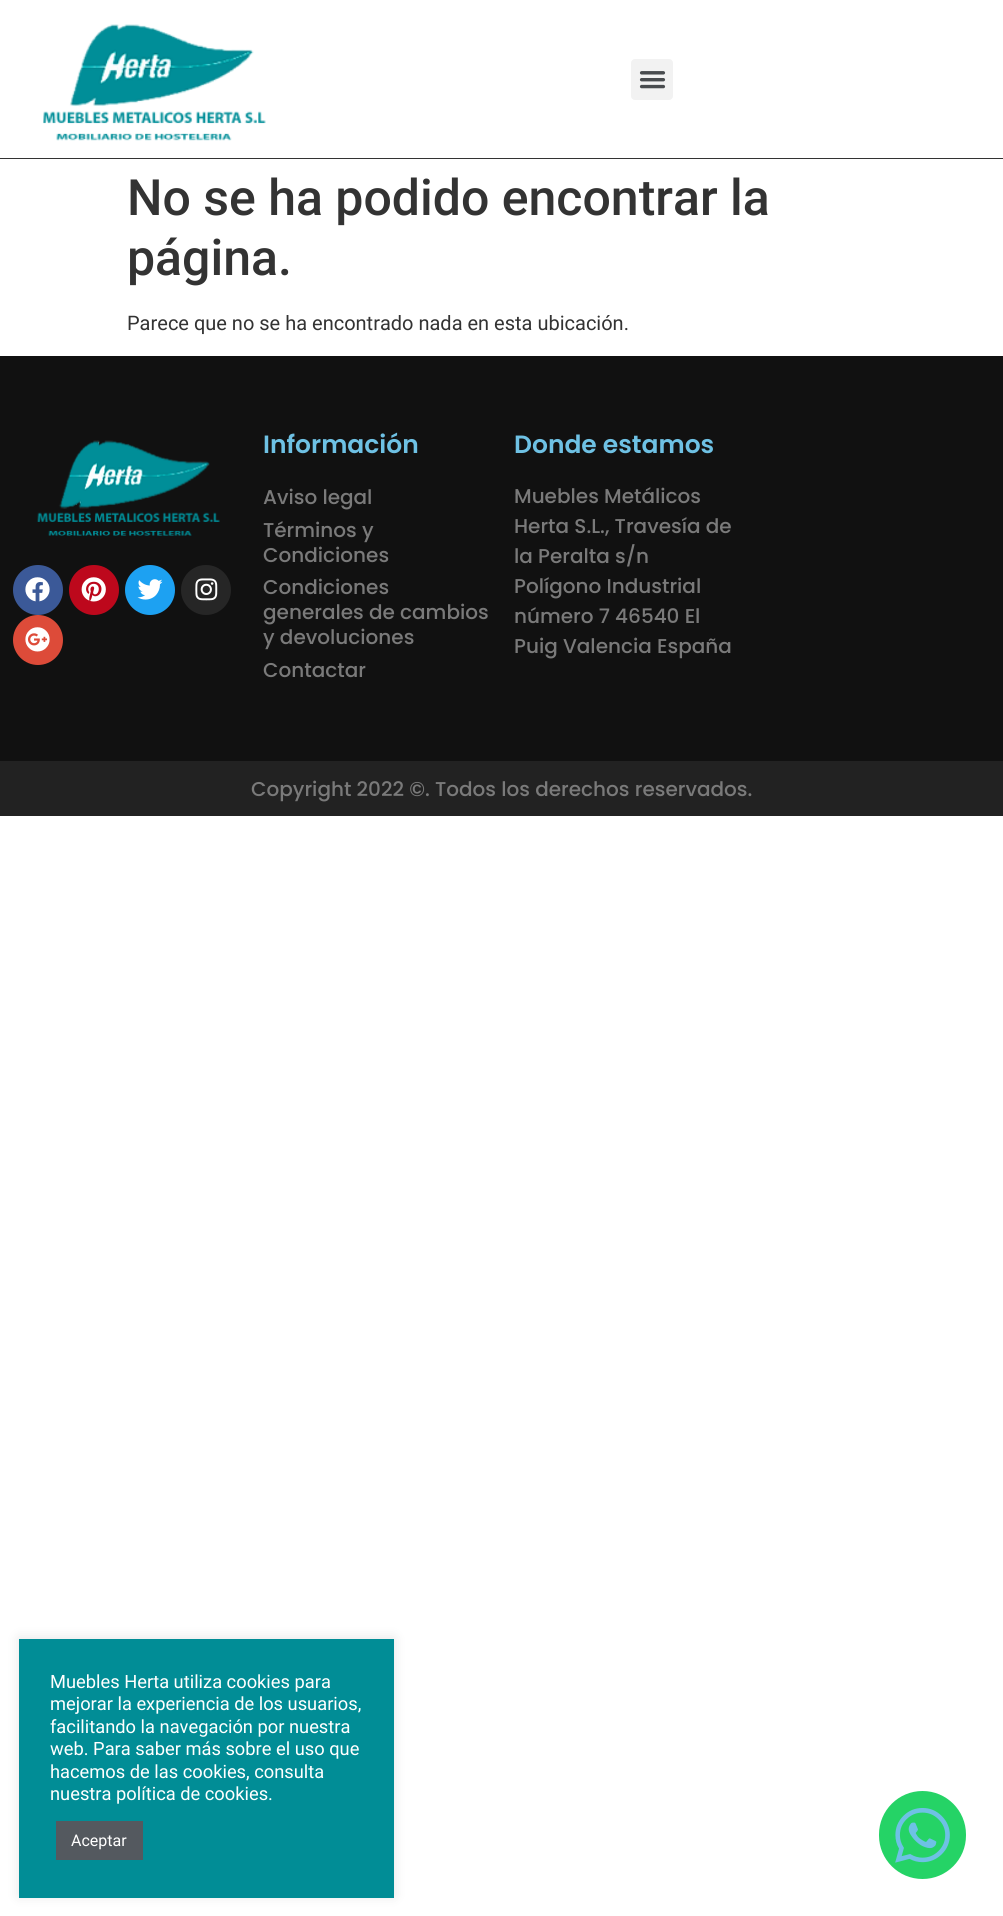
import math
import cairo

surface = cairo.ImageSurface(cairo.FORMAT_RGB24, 1003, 1916)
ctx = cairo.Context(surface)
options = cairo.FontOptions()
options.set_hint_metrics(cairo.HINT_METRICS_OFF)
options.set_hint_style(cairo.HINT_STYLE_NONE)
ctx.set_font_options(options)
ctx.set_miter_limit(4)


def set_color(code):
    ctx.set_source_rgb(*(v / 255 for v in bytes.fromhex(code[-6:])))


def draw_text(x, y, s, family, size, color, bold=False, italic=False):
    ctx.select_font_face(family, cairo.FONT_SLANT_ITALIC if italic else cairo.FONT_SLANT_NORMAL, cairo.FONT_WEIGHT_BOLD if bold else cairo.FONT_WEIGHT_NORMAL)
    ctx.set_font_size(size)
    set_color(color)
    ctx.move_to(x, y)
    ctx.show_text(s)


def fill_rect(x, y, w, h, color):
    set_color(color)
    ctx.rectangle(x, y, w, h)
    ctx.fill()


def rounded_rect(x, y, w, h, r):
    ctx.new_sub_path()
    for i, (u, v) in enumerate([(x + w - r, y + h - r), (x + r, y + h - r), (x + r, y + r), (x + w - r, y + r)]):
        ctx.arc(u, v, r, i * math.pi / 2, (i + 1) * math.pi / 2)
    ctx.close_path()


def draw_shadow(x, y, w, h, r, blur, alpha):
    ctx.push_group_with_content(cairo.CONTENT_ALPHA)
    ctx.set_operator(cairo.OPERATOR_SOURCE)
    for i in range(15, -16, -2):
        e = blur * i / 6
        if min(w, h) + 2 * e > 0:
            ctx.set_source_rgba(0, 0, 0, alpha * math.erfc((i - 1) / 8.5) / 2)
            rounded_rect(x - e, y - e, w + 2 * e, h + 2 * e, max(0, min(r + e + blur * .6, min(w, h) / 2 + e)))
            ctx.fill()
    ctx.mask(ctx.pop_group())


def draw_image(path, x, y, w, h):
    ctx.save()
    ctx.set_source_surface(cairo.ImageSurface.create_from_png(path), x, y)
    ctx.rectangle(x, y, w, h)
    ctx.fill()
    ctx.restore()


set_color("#ffffff")
ctx.paint()
fill_rect(0, 158, 1003, 1, "#333333")
draw_image("assets/img1.png", 43, 24, 223, 117)
set_color("#f2f2f2")
rounded_rect(631, 59, 42, 41, 4)
ctx.fill()
draw_image("assets/img2.png", 639, 71, 27, 18)
draw_text(127, 215, "No se ha podido encontrar la", "Roboto Medium", 50, "#333333")
draw_text(127, 275, "página.", "Roboto Medium", 50, "#333333")
draw_text(127, 330, "Parece que no se ha encontrado nada en esta ubicación.", "Roboto", 20, "#333333")
fill_rect(0, 356, 1003, 405, "#111111")
draw_image("assets/img3.png", 37, 440, 183, 96)
set_color("#3b5998")
ctx.arc(38, 590, 25, 0, 2 * math.pi)
ctx.fill()
draw_image("assets/img4.png", 25, 577, 25, 25)
set_color("#bd081c")
ctx.arc(94, 590, 25, 0, 2 * math.pi)
ctx.fill()
draw_image("assets/img5.png", 81, 577, 25, 25)
set_color("#1da1f2")
ctx.arc(150, 590, 25, 0, 2 * math.pi)
ctx.fill()
draw_image("assets/img6.png", 137, 579, 26, 21)
set_color("#262626")
ctx.arc(206, 590, 25, 0, 2 * math.pi)
ctx.fill()
draw_image("assets/img7.png", 195, 578, 23, 23)
set_color("#dd4b39")
ctx.arc(38, 640, 25, 0, 2 * math.pi)
ctx.fill()
draw_image("assets/img8.png", 25, 627, 25, 25)
draw_text(263, 453, "Información", "Poppins SemiBold", 25, "#6ec1e4")
draw_text(263, 504, "Aviso legal", "Poppins Medium", 20, "#7a7a7a")
draw_text(263, 537, "Términos y", "Poppins Medium", 20, "#7a7a7a")
draw_text(263, 562, "Condiciones", "Poppins Medium", 20, "#7a7a7a")
draw_text(263, 594, "Condiciones", "Poppins Medium", 20, "#7a7a7a")
draw_text(263, 619, "generales de cambios", "Poppins Medium", 20, "#7a7a7a")
draw_text(263, 644, "y devoluciones", "Poppins Medium", 20, "#7a7a7a")
draw_text(263, 677, "Contactar", "Poppins Medium", 20, "#7a7a7a")
draw_text(514, 453, "Donde estamos", "Poppins SemiBold", 25, "#6ec1e4")
draw_text(514, 503, "Muebles Metálicos", "Poppins Medium", 20, "#7a7a7a")
draw_text(514, 533, "Herta S.L., Travesía de", "Poppins Medium", 20, "#7a7a7a")
draw_text(514, 563, "la Peralta s/n", "Poppins Medium", 20, "#7a7a7a")
draw_text(514, 593, "Polígono Industrial", "Poppins Medium", 20, "#7a7a7a")
draw_text(514, 623, "número 7 46540 El", "Poppins Medium", 20, "#7a7a7a")
draw_text(514, 653, "Puig Valencia España", "Poppins Medium", 20, "#7a7a7a")
fill_rect(0, 761, 1003, 55, "#222222")
draw_text(251, 796, "Copyright 2022 ©. Todos los derechos reservados.", "Poppins Medium", 20, "#7a7a7a")
set_color("#25d366")
rounded_rect(879, 1791, 87, 88, 43.5)
ctx.fill()
draw_image("assets/img9.png", 895, 1808, 55, 55)
set_color("#acabab")
draw_shadow(19, 1638, 375, 258, 0, 6, 0.3)
fill_rect(19, 1639, 375, 259, "#018d96")
draw_text(50, 1688, "Muebles Herta utiliza cookies para", "Roboto", 18.3, "#ffffff")
draw_text(50, 1710, "mejorar la experiencia de los usuarios,", "Roboto", 18.3, "#ffffff")
draw_text(50, 1733, "facilitando la navegación por nuestra", "Roboto", 18.3, "#ffffff")
draw_text(50, 1755, "web. Para saber más sobre el uso que", "Roboto", 18.3, "#ffffff")
draw_text(50, 1778, "hacemos de las cookies, consulta", "Roboto", 18.3, "#ffffff")
draw_text(50, 1800, "nuestra política de cookies.", "Roboto", 18.3, "#ffffff")
fill_rect(56, 1821, 87, 39, "#54595f")
draw_text(71, 1846, "Aceptar", "Roboto", 16, "#ffffff")
surface.write_to_png("output.png")
